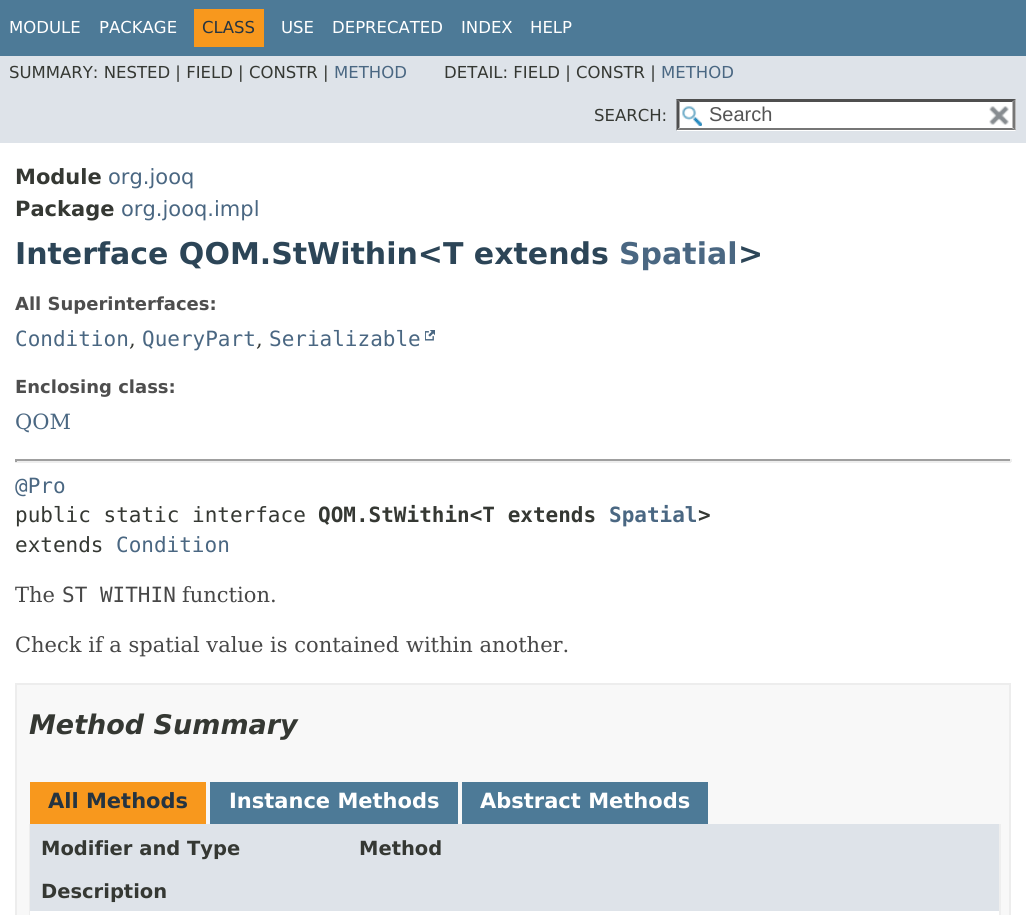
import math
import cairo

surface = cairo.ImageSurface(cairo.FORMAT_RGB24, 1026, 915)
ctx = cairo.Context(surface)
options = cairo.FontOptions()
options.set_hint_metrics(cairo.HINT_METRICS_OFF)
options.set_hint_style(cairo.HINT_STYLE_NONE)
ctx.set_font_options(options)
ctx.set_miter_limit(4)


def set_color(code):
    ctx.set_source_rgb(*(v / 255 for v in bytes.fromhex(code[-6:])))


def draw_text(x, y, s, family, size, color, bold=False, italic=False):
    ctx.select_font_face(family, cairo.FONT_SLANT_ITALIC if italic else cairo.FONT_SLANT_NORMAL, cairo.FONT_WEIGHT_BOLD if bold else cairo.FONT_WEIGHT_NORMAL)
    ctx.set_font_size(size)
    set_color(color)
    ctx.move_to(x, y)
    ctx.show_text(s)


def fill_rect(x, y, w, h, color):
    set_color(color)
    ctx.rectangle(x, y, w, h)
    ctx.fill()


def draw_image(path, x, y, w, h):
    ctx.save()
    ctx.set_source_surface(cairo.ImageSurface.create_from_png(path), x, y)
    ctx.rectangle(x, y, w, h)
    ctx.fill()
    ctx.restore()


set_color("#ffffff")
ctx.paint()
fill_rect(0, 0, 1026, 56, "#4d7a97")
draw_text(9, 33, "MODULE", "DejaVu Sans", 16.5, "#ffffff")
draw_text(99, 33, "PACKAGE", "DejaVu Sans", 16.5, "#ffffff")
fill_rect(194, 9, 70, 38, "#f8981d")
draw_text(202, 33, "CLASS", "DejaVu Sans", 16.5, "#253441")
draw_text(281, 33, "USE", "DejaVu Sans", 16.5, "#ffffff")
draw_text(332, 33, "DEPRECATED", "DejaVu Sans", 16.5, "#ffffff")
draw_text(461, 33, "INDEX", "DejaVu Sans", 16.5, "#ffffff")
draw_text(530, 33, "HELP", "DejaVu Sans", 16.5, "#ffffff")
fill_rect(0, 56, 1026, 87, "#dee3e9")
draw_text(9, 78, "SUMMARY: NESTED | FIELD | CONSTR |", "DejaVu Sans", 16.5, "#353833")
draw_text(334, 78, "METHOD", "DejaVu Sans", 16.5, "#4a6782")
draw_text(444, 78, "DETAIL: FIELD | CONSTR |", "DejaVu Sans", 16.5, "#353833")
draw_text(661, 78, "METHOD", "DejaVu Sans", 16.5, "#4a6782")
draw_text(594, 121, "SEARCH:", "DejaVu Sans", 16.5, "#353833")
fill_rect(677, 99, 339, 32, "#ffffff")
draw_image("assets/img1.png", 682, 106, 20, 20)
set_color("#4f4f4f")
ctx.new_path()
ctx.move_to(676, 99)
ctx.line_to(1016, 99)
ctx.line_to(1012, 102)
ctx.line_to(680, 102)
ctx.close_path()
ctx.fill()
set_color("#767676")
ctx.new_path()
ctx.move_to(1015.5, 99)
ctx.line_to(1015.5, 130.5)
ctx.line_to(1012.5, 127.5)
ctx.line_to(1012.5, 102)
ctx.close_path()
ctx.fill()
ctx.new_path()
ctx.move_to(1016, 130)
ctx.line_to(676, 130)
ctx.line_to(680, 128)
ctx.line_to(1012, 128)
ctx.close_path()
ctx.fill()
set_color("#4f4f4f")
ctx.new_path()
ctx.move_to(676.5, 130.5)
ctx.line_to(676.5, 99)
ctx.line_to(679.5, 102)
ctx.line_to(679.5, 127.5)
ctx.close_path()
ctx.fill()
draw_text(709, 121, "Search", "Liberation Sans", 20, "#545454")
draw_image("assets/img2.png", 989, 106, 20, 19)
draw_text(15, 184, "Module", "DejaVu Sans", 21, "#353833", bold=True)
draw_text(108, 184, "org.jooq", "DejaVu Sans", 21, "#4a6782")
draw_text(15, 216, "Package", "DejaVu Sans", 21, "#353833", bold=True)
draw_text(121, 216, "org.jooq.impl", "DejaVu Sans", 21, "#4a6782")
draw_text(15, 264, "Interface QOM.StWithin<T extends", "DejaVu Sans", 30, "#2c4557", bold=True)
draw_text(619, 264, "Spatial", "DejaVu Sans", 30, "#4a6782", bold=True)
draw_text(738, 264, ">", "DejaVu Sans", 30, "#2c4557", bold=True)
draw_text(15, 310, "All Superinterfaces:", "DejaVu Sans", 18, "#4e4e4e", bold=True)
draw_text(15, 346, "Condition", "DejaVu Sans Mono", 21, "#4a6782")
draw_text(129, 346, ",", "DejaVu Serif", 21, "#353833")
draw_text(142, 346, "QueryPart", "DejaVu Sans Mono", 21, "#4a6782")
draw_text(256, 346, ",", "DejaVu Serif", 21, "#353833")
draw_text(269, 346, "Serializable", "DejaVu Sans Mono", 21, "#4a6782")
draw_image("assets/img3.png", 425, 330, 10, 11)
draw_text(15, 393, "Enclosing class:", "DejaVu Sans", 18, "#4e4e4e", bold=True)
draw_text(15, 429, "QOM", "DejaVu Serif", 21, "#4a6782")
fill_rect(15, 459, 996, 2, "#9f9f9f")
fill_rect(1010, 459, 2, 3, "#eeeeee")
fill_rect(15, 461, 996, 2, "#eeeeee")
fill_rect(15, 459, 2, 3, "#9f9f9f")
draw_text(15, 493, "@Pro", "DejaVu Sans Mono", 21, "#4a6782")
draw_text(15, 522, "public static interface", "DejaVu Sans Mono", 21, "#353833")
draw_text(318, 522, "QOM.StWithin<T extends", "DejaVu Sans Mono", 21, "#353833", bold=True)
draw_text(609, 522, "Spatial", "DejaVu Sans Mono", 21, "#4a6782", bold=True)
draw_text(698, 522, ">", "DejaVu Sans Mono", 21, "#353833", bold=True)
draw_text(15, 552, "extends", "DejaVu Sans Mono", 21, "#353833")
draw_text(116, 552, "Condition", "DejaVu Sans Mono", 21, "#4a6782")
draw_text(15, 602, "The", "DejaVu Serif", 21, "#474747")
draw_text(62, 602, "ST WITHIN", "DejaVu Sans Mono", 21, "#474747")
draw_text(182, 602, "function.", "DejaVu Serif", 21, "#474747")
draw_text(15, 652, "Check if a spatial value is contained within another.", "DejaVu Serif", 21, "#474747")
set_color("#f8f8f8")
ctx.rectangle(16, 684, 994, 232)
ctx.fill_preserve()
set_color("#ededed")
ctx.stroke()
draw_text(29, 734, "Method Summary", "DejaVu Sans", 27, "#353833", bold=True, italic=True)
fill_rect(30, 782, 176, 42, "#f8981d")
draw_text(48, 808, "All Methods", "DejaVu Sans", 21, "#253441", bold=True)
fill_rect(210, 782, 248, 42, "#4d7a97")
draw_text(229, 808, "Instance Methods", "DejaVu Sans", 21, "#ffffff", bold=True)
fill_rect(462, 782, 246, 42, "#4d7a97")
draw_text(480, 808, "Abstract Methods", "DejaVu Sans", 21, "#ffffff", bold=True)
fill_rect(999, 824, 2, 91, "#eeeeee")
fill_rect(29, 824, 1, 91, "#eeeeee")
fill_rect(30, 824, 969, 43, "#dee3e9")
draw_text(41, 855, "Modifier and Type", "DejaVu Sans", 19.5, "#353833", bold=True)
draw_text(359, 855, "Method", "DejaVu Sans", 19.5, "#353833", bold=True)
fill_rect(30, 867, 969, 44, "#dee3e9")
draw_text(41, 898, "Description", "DejaVu Sans", 19.5, "#353833", bold=True)
fill_rect(30, 911, 969, 4, "#ffffff")
surface.write_to_png("output.png")
